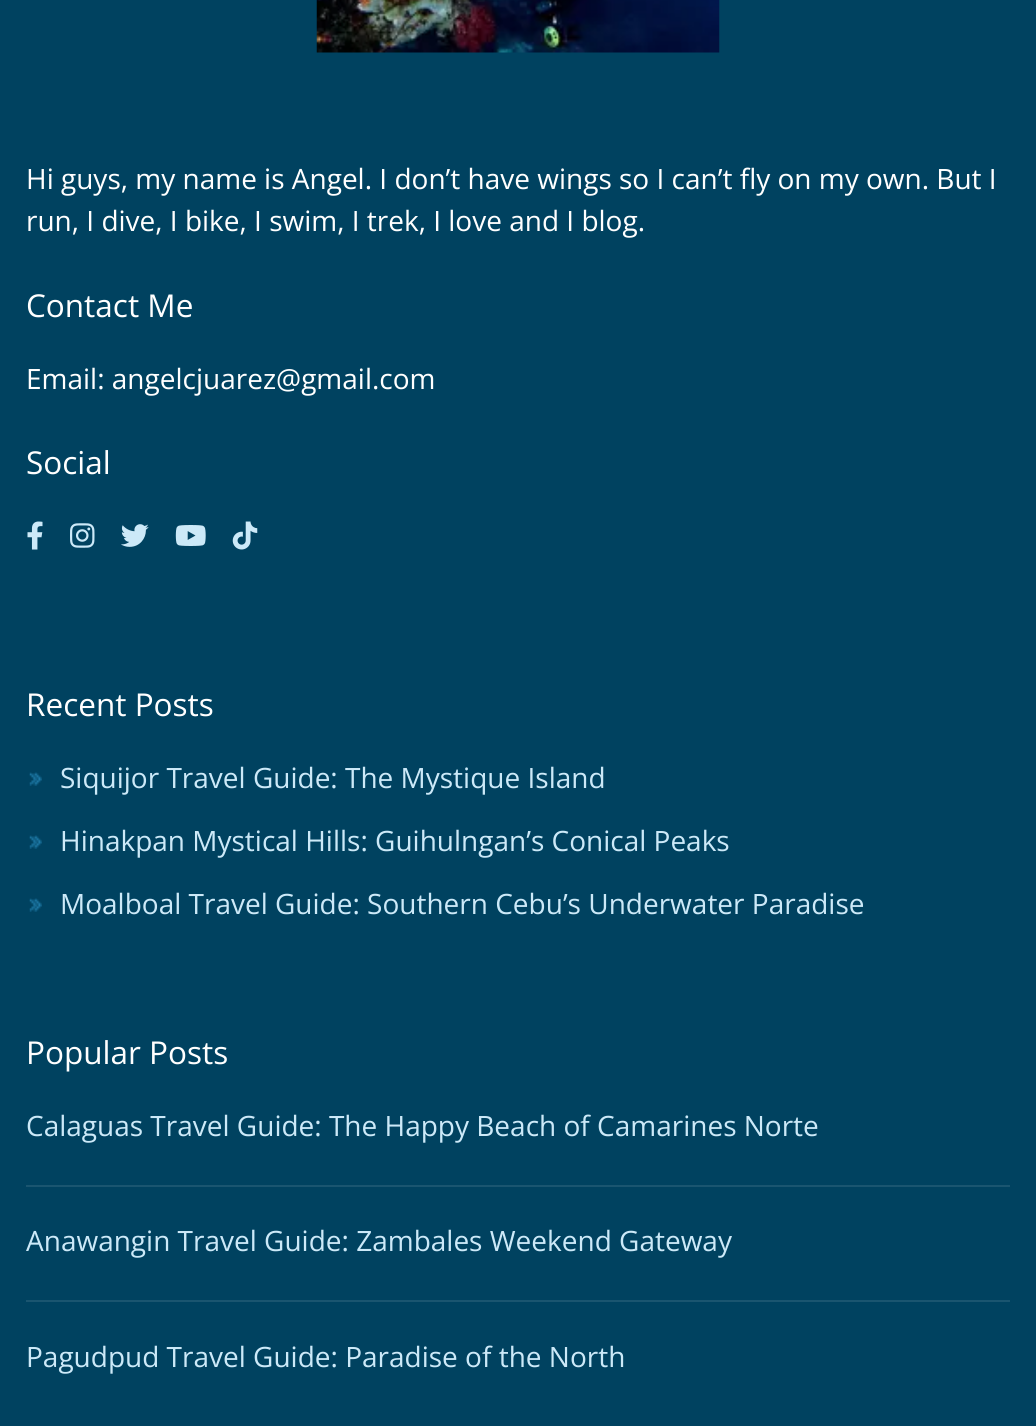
import math
import cairo

surface = cairo.ImageSurface(cairo.FORMAT_RGB24, 1036, 1426)
ctx = cairo.Context(surface)
options = cairo.FontOptions()
options.set_hint_metrics(cairo.HINT_METRICS_OFF)
options.set_hint_style(cairo.HINT_STYLE_NONE)
ctx.set_font_options(options)
ctx.set_miter_limit(4)


def set_color(code):
    ctx.set_source_rgb(*(v / 255 for v in bytes.fromhex(code[-6:])))


def draw_text(x, y, s, family, size, color, bold=False, italic=False):
    ctx.select_font_face(family, cairo.FONT_SLANT_ITALIC if italic else cairo.FONT_SLANT_NORMAL, cairo.FONT_WEIGHT_BOLD if bold else cairo.FONT_WEIGHT_NORMAL)
    ctx.set_font_size(size)
    set_color(color)
    ctx.move_to(x, y)
    ctx.show_text(s)


def fill_rect(x, y, w, h, color):
    set_color(color)
    ctx.rectangle(x, y, w, h)
    ctx.fill()


def draw_image(path, x, y, w, h):
    ctx.save()
    ctx.set_source_surface(cairo.ImageSurface.create_from_png(path), x, y)
    ctx.rectangle(x, y, w, h)
    ctx.fill()
    ctx.restore()


set_color("#004260")
ctx.paint()
draw_image("assets/img1.png", 316, 0, 404, 53)
draw_text(26, 189, "Hi guys, my name is Angel. I don’t have wings so I can’t fly on my own. But I", "Open Sans", 28, "#ffffff")
draw_text(26, 231, "run, I dive, I bike, I swim, I trek, I love and I blog.", "Open Sans", 28, "#ffffff")
draw_text(26, 317, "Contact Me", "Open Sans", 31.5, "#ffffff")
draw_text(26, 389, "Email: angelcjuarez@gmail.com", "Open Sans", 28, "#ffffff")
draw_text(26, 474, "Social", "Open Sans", 31.5, "#ffffff")
draw_image("assets/img2.png", 27, 521, 16, 29)
draw_image("assets/img3.png", 70, 523, 25, 25)
draw_image("assets/img4.png", 121, 524, 28, 23)
draw_image("assets/img5.png", 175, 525, 31, 21)
draw_image("assets/img6.png", 232, 521, 26, 29)
draw_text(26, 716, "Recent Posts", "Open Sans", 31.5, "#ffffff")
draw_image("assets/img7.png", 29, 772, 13, 14)
draw_text(60, 788, "Siquijor Travel Guide: The Mystique Island", "Open Sans", 28, "#cce9f8")
draw_image("assets/img7.png", 29, 835, 13, 14)
draw_text(60, 851, "Hinakpan Mystical Hills: Guihulngan’s Conical Peaks", "Open Sans", 28, "#cce9f8")
draw_image("assets/img7.png", 29, 898, 13, 14)
draw_text(60, 914, "Moalboal Travel Guide: Southern Cebu’s Underwater Paradise", "Open Sans", 28, "#cce9f8")
draw_text(26, 1064, "Popular Posts", "Open Sans", 31.5, "#ffffff")
fill_rect(26, 1185, 984, 2, "#1a5570")
draw_text(26, 1136, "Calaguas Travel Guide: The Happy Beach of Camarines Norte", "Open Sans", 28, "#cce9f8")
fill_rect(26, 1300, 984, 2, "#1a5570")
draw_text(26, 1251, "Anawangin Travel Guide: Zambales Weekend Gateway", "Open Sans", 28, "#cce9f8")
draw_text(26, 1367, "Pagudpud Travel Guide: Paradise of the North", "Open Sans", 28, "#cce9f8")
surface.write_to_png("output.png")
